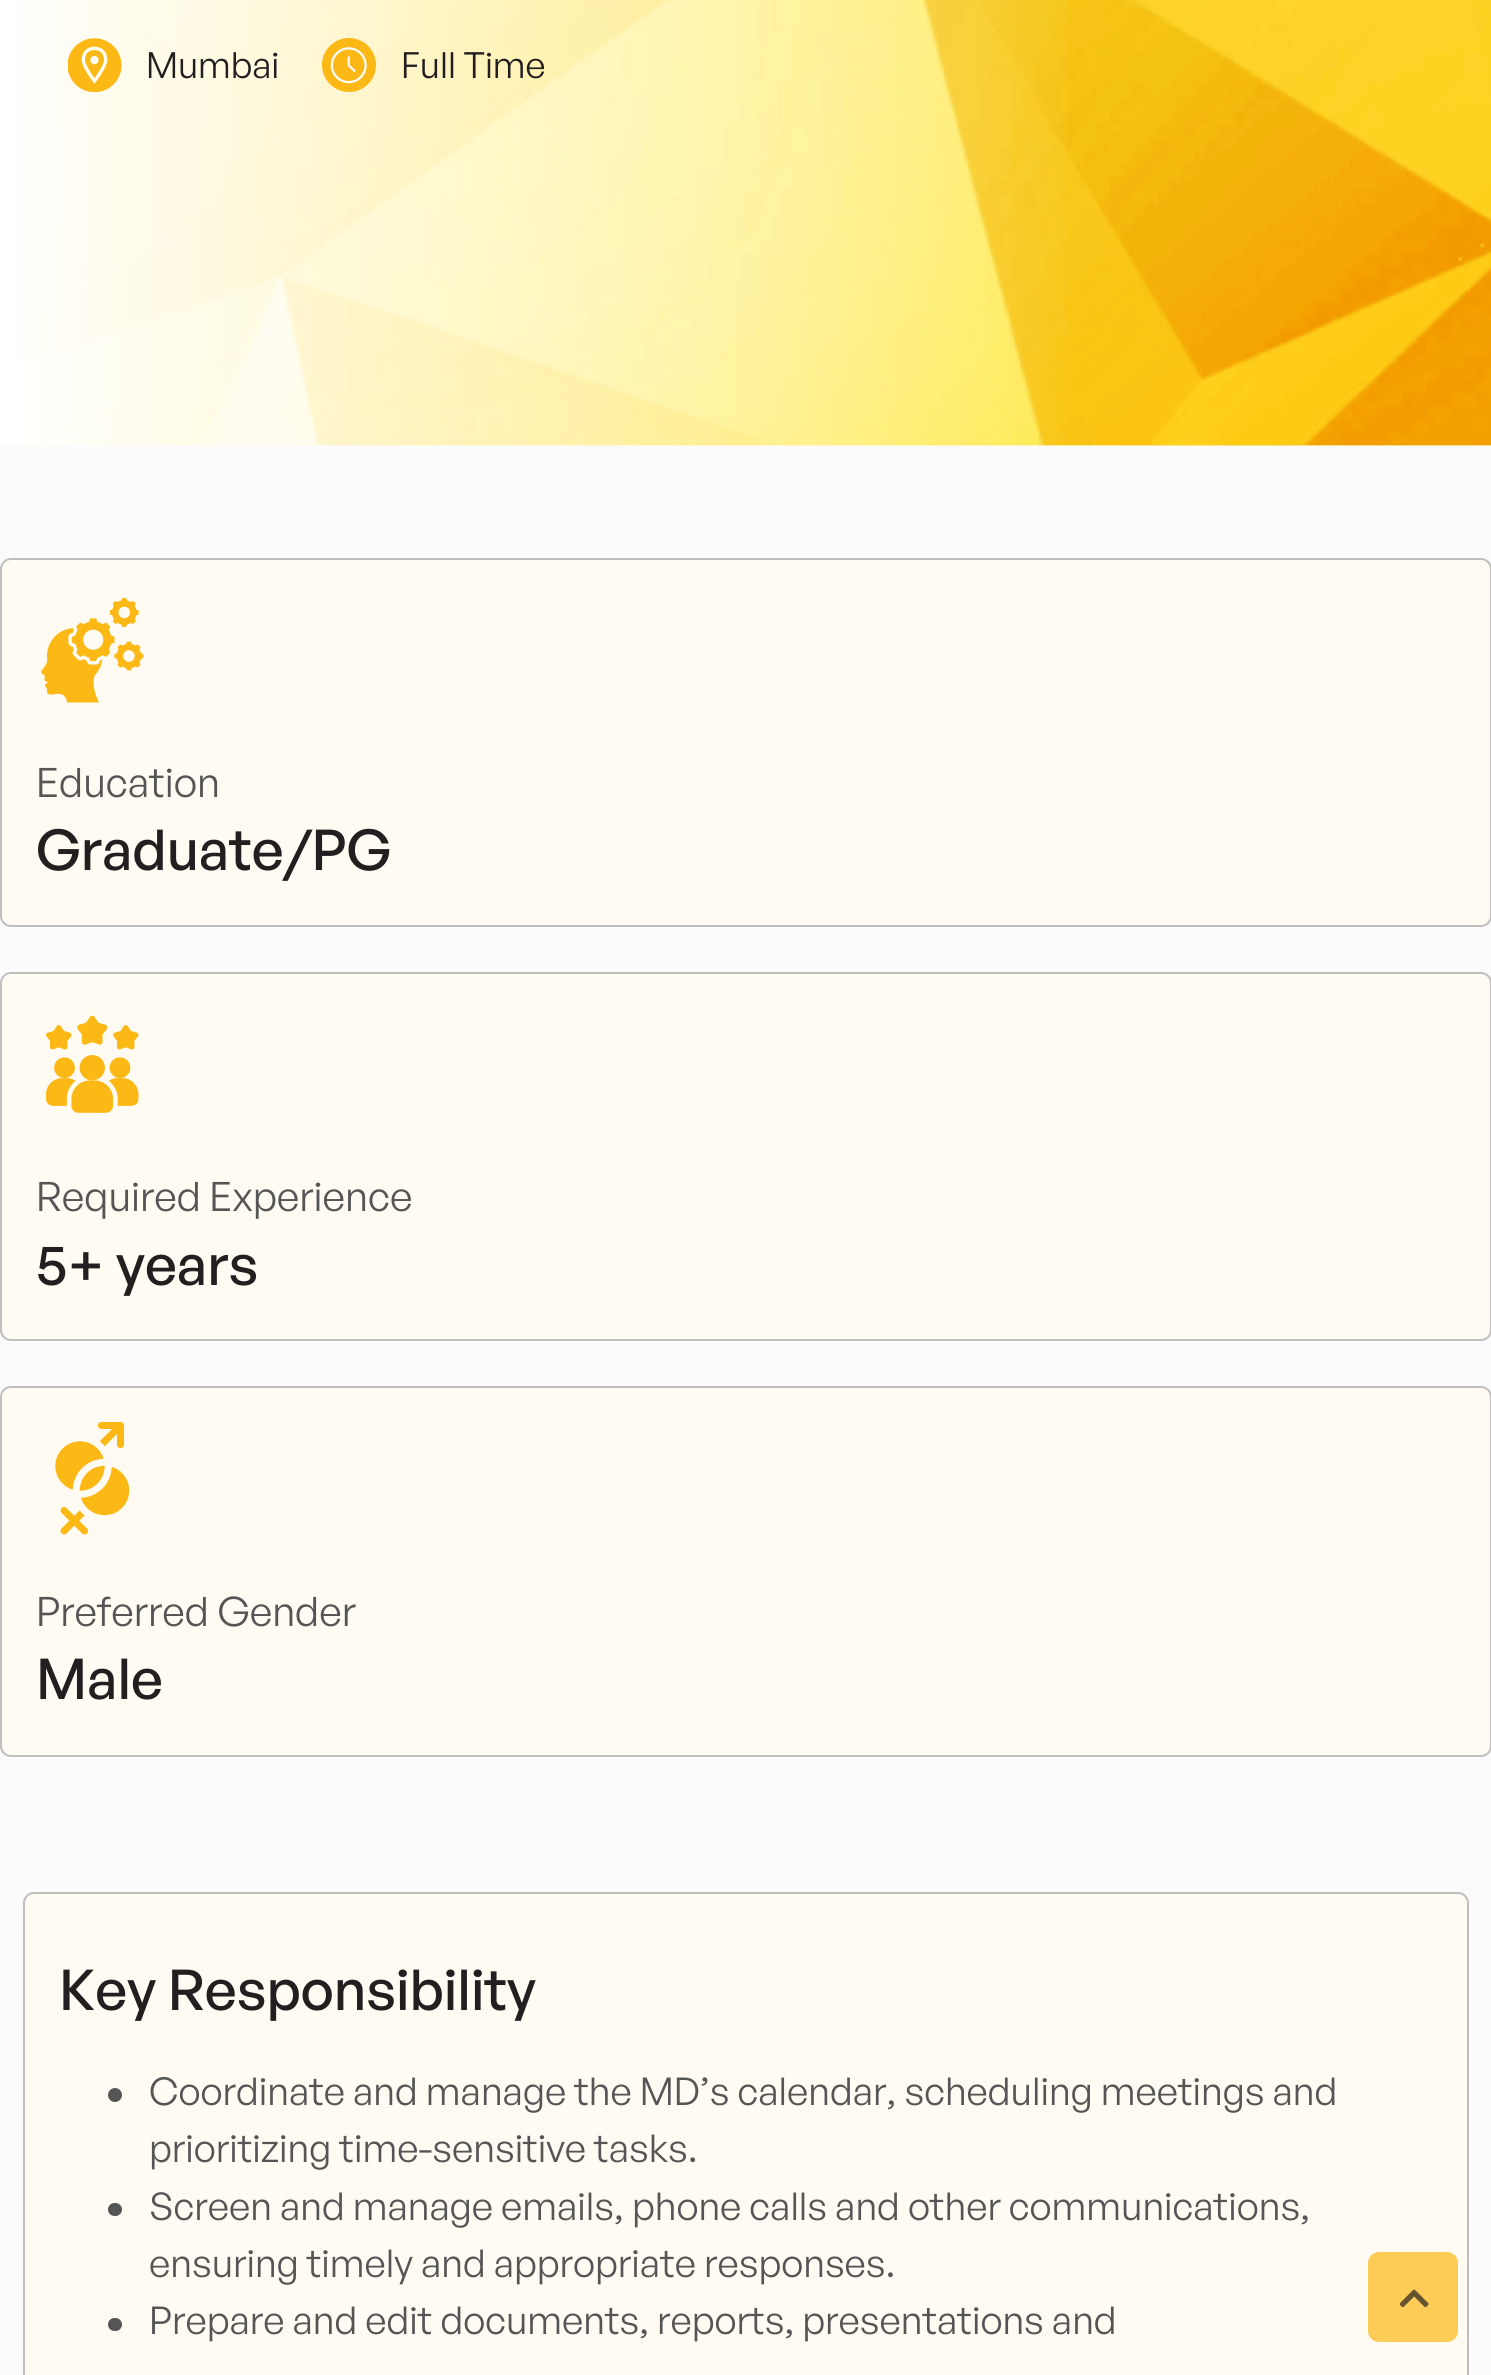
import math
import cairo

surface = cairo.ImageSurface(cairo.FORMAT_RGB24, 1491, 2375)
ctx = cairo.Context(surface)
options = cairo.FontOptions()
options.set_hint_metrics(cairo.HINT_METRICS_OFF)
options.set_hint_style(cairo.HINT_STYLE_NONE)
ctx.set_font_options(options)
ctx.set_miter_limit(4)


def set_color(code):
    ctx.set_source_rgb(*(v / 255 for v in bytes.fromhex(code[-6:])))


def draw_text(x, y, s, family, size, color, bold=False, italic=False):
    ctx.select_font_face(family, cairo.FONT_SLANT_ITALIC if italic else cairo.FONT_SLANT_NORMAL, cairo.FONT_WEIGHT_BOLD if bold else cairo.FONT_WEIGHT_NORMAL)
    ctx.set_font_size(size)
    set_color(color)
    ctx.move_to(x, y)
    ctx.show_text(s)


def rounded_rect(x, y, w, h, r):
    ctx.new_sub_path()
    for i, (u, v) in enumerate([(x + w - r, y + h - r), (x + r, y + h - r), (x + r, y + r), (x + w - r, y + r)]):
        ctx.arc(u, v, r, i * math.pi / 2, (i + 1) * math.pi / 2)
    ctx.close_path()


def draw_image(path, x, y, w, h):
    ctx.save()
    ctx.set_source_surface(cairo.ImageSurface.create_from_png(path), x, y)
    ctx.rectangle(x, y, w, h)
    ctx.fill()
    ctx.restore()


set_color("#fbfbfb")
ctx.paint()
draw_image("assets/img1.png", 6, 0, 1485, 446)
gradient = cairo.LinearGradient(0, -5.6, 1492, -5.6)
gradient.add_color_stop_rgba(0, 1, 1, 1, 1)
gradient.add_color_stop_rgba(0.73, 1, 1, 1, 0)
ctx.set_source(gradient)
ctx.rectangle(0, 0, 1066, 446)
ctx.fill()
draw_image("assets/img2.png", 68, 38, 54, 54)
draw_text(146, 78, "Mumbai", "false", 36, "#231f20")
draw_image("assets/img3.png", 322, 38, 54, 54)
draw_text(401, 78, "Full Time", "false", 36, "#231f20")
set_color("#fffbf2")
rounded_rect(1, 559, 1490, 367, 10)
ctx.fill_preserve()
set_color("#bebebe")
ctx.stroke()
draw_image("assets/img4.png", 41, 598, 103, 105)
draw_text(36, 797, "Education", "false", 40.5, "#555555")
draw_text(36, 870, "Graduate/PG", "General Sans Medium", 56.25, "#231f20")
set_color("#fffbf2")
rounded_rect(1, 973, 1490, 367, 10)
ctx.fill_preserve()
set_color("#bebebe")
ctx.stroke()
draw_image("assets/img5.png", 46, 1015, 93, 98)
draw_text(36, 1211, "Required Experience", "false", 40.5, "#555555")
draw_text(36, 1285, "5+ years", "General Sans Medium", 56.25, "#231f20")
set_color("#fffbf2")
rounded_rect(1, 1387, 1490, 369, 10)
ctx.fill_preserve()
set_color("#bebebe")
ctx.stroke()
draw_image("assets/img6.png", 55, 1422, 75, 113)
draw_text(36, 1626, "Preferred Gender", "false", 40.5, "#555555")
draw_text(36, 1699, "Male", "General Sans Medium", 56.25, "#231f20")
set_color("#fffbf2")
rounded_rect(24, 1893, 1444, 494, 10)
ctx.fill_preserve()
set_color("#bebebe")
ctx.stroke()
draw_text(59, 2010, "Key Responsibility", "General Sans Medium", 56.25, "#231f20")
set_color("#555555")
ctx.new_path()
ctx.arc(115, 2095, 7, 0, 2 * math.pi)
ctx.fill()
draw_text(149, 2105, "Coordinate and manage the MD’s calendar, scheduling meetings and", "false", 38.25, "#555555")
draw_text(149, 2162, "prioritizing time-sensitive tasks.", "false", 38.25, "#555555")
rounded_rect(108, 2203, 14, 13, 6.5)
ctx.fill()
draw_text(149, 2220, "Screen and manage emails, phone calls and other communications,", "false", 38.25, "#555555")
draw_text(149, 2277, "ensuring timely and appropriate responses.", "false", 38.25, "#555555")
rounded_rect(108, 2318, 14, 13, 6.5)
ctx.fill()
draw_text(149, 2334, "Prepare and edit documents, reports, presentations and", "false", 38.25, "#555555")
set_color("#fdcc57")
rounded_rect(1368, 2252, 90, 90, 11)
ctx.fill()
draw_image("assets/img7.png", 1399, 2289, 30, 19)
surface.write_to_png("output.png")
